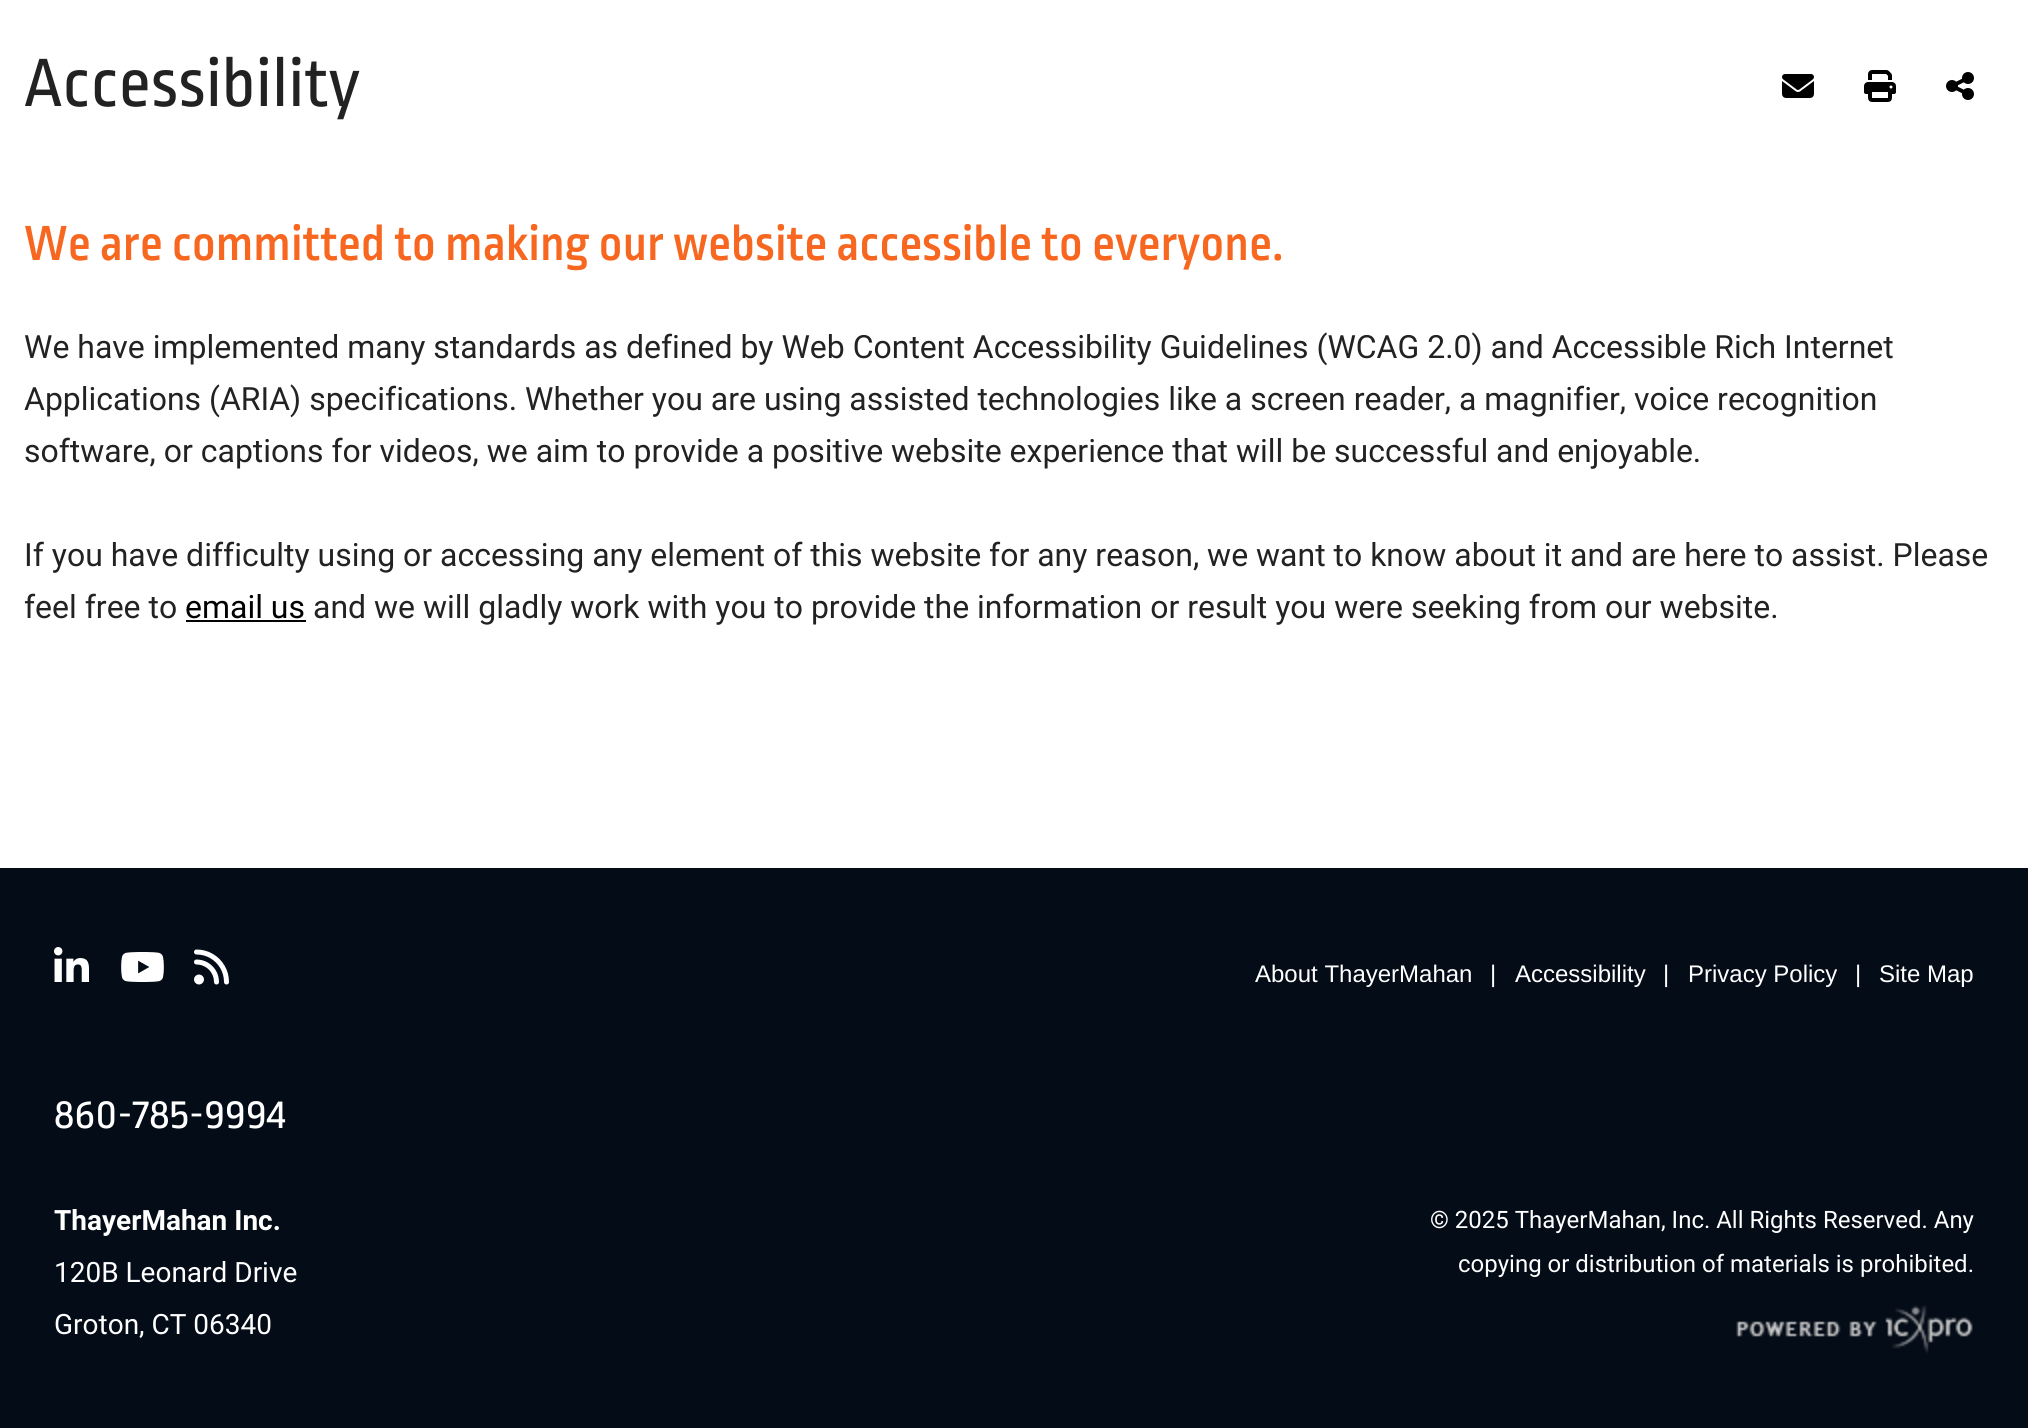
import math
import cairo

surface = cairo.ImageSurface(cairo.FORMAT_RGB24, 2029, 1428)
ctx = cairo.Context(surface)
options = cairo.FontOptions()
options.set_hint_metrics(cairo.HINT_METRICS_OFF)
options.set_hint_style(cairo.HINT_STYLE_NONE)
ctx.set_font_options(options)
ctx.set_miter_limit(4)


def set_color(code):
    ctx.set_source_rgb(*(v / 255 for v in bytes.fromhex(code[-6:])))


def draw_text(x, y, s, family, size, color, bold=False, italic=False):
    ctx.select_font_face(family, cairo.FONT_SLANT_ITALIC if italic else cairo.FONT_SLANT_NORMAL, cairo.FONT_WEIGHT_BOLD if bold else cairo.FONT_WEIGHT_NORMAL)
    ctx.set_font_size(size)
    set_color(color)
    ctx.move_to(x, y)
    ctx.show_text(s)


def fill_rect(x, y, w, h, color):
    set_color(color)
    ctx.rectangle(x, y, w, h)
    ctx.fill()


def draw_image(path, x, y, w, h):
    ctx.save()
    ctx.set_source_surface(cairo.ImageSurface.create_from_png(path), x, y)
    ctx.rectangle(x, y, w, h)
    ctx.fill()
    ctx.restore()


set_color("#ffffff")
ctx.paint()
draw_text(24, 106, "Accessibility", "Ropa Sans", 72, "#222222")
draw_text(24, 260, "We are committed to making our website accessible to everyone.", "Ropa Sans Medium", 52, "#f76720")
draw_text(24, 358, "We have implemented many standards as defined by Web Content Accessibility Guidelines (WCAG 2.0) and Accessible Rich Internet", "Roboto", 32, "#222222")
draw_text(24, 410, "Applications (ARIA) specifications. Whether you are using assisted technologies like a screen reader, a magnifier, voice recognition", "Roboto", 32, "#222222")
draw_text(24, 462, "software, or captions for videos, we aim to provide a positive website experience that will be successful and enjoyable.", "Roboto", 32, "#222222")
draw_text(24, 566, "If you have difficulty using or accessing any element of this website for any reason, we want to know about it and are here to assist. Please", "Roboto", 32, "#222222")
draw_text(24, 618, "feel free to", "Roboto", 32, "#222222")
draw_text(185, 618, "email us", "Roboto", 32, "#000000")
fill_rect(186, 620, 120, 2, "#000000")
draw_text(313, 618, "and we will gladly work with you to provide the information or result you were seeking from our website.", "Roboto", 32, "#222222")
draw_image("assets/img1.png", 1782, 74, 32, 24)
draw_image("assets/img2.png", 1864, 70, 32, 32)
draw_image("assets/img3.png", 1946, 72, 28, 28)
fill_rect(0, 868, 2028, 560, "#040c17")
draw_image("assets/img4.png", 54, 947, 35, 35)
draw_image("assets/img5.png", 121, 952, 43, 30)
draw_image("assets/img6.png", 194, 949, 35, 36)
draw_text(1255, 982, "About ThayerMahan", "Liberation Sans", 24, "#ffffff")
draw_text(1490, 982, "|", "Liberation Sans", 24, "#ffffff")
draw_text(1515, 982, "Accessibility", "Liberation Sans", 24, "#ffffff")
draw_text(1663, 982, "|", "Liberation Sans", 24, "#ffffff")
draw_text(1688, 982, "Privacy Policy", "Liberation Sans", 24, "#ffffff")
draw_text(1855, 982, "|", "Liberation Sans", 24, "#ffffff")
draw_text(1879, 982, "Site Map", "Liberation Sans", 24, "#ffffff")
draw_text(54, 1128, "860-785-9994", "Ropa Sans", 44, "#ffffff")
draw_text(54, 1230, "ThayerMahan Inc.", "Roboto", 28, "#ffffff", bold=True)
draw_text(54, 1282, "120B Leonard Drive", "Roboto", 28, "#ffffff")
draw_text(54, 1334, "Groton, CT 06340", "Roboto", 28, "#ffffff")
draw_text(1430, 1228, "© 2025 ThayerMahan, Inc. All Rights Reserved. Any", "Roboto", 24, "#ffffff")
draw_text(1458, 1272, "copying or distribution of materials is prohibited.", "Roboto", 24, "#ffffff")
draw_image("assets/img7.png", 1736, 1305, 237, 49)
surface.write_to_png("output.png")
